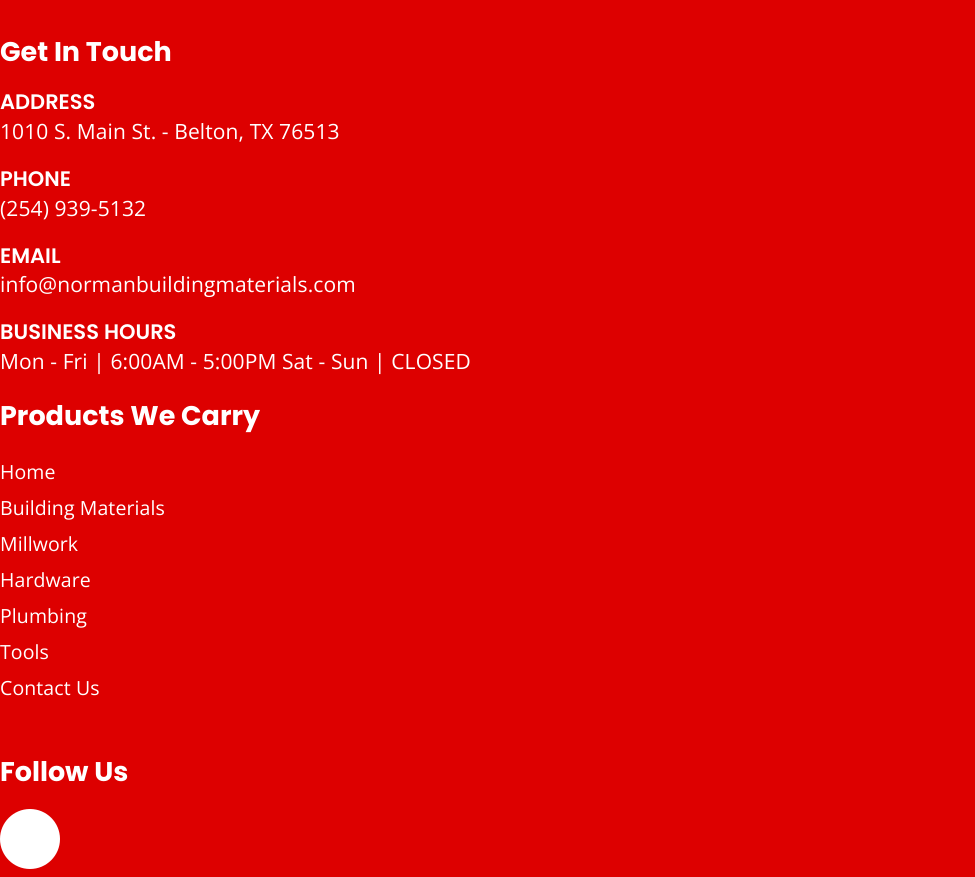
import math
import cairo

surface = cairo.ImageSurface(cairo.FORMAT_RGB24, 975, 877)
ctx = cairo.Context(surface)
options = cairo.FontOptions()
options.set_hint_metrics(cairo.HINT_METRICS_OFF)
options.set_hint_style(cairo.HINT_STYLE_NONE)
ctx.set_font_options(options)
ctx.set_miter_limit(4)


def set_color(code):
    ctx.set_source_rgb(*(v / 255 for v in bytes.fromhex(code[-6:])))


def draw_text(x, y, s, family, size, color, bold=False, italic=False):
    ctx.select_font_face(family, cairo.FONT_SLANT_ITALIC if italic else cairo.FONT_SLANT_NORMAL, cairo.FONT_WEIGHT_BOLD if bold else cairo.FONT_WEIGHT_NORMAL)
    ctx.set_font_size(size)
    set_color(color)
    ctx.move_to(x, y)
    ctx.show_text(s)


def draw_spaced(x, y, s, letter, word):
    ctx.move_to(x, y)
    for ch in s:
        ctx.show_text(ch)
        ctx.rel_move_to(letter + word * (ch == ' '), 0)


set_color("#dd0000")
ctx.paint()
draw_text(0, 61, "Get In Touch", "Poppins", 27, "#ffffff", bold=True)
draw_text(0, 109, "ADDRESS", "Poppins SemiBold", 21, "#ffffff")
ctx.select_font_face("Open Sans")
draw_spaced(0, 139, "1010 S. Main St. - Belton, TX 76513", 0.1, 0)
draw_text(0, 186, "PHONE", "Poppins SemiBold", 21, "#ffffff")
ctx.select_font_face("Open Sans")
draw_spaced(0, 216, "(254) 939-5132", 0.1, 0)
draw_text(0, 263, "EMAIL", "Poppins SemiBold", 21, "#ffffff")
ctx.select_font_face("Open Sans")
draw_spaced(0, 292, "info@normanbuildingmaterials.com", 0.1, 0)
draw_text(0, 339, "BUSINESS HOURS", "Poppins SemiBold", 21, "#ffffff")
ctx.select_font_face("Open Sans")
draw_spaced(0, 369, "Mon - Fri | 6:00AM - 5:00PM Sat - Sun | CLOSED", 0.1, 0)
draw_text(0, 425, "Products We Carry", "Poppins", 27, "#ffffff", bold=True)
ctx.select_font_face("Open Sans")
ctx.set_font_size(19.5)
draw_spaced(0, 479, "Home", 0.1, 0)
draw_spaced(0, 515, "Building Materials", 0.1, 0)
draw_spaced(0, 551, "Millwork", 0.1, 0)
draw_spaced(0, 587, "Hardware", 0.1, 0)
draw_spaced(0, 623, "Plumbing", 0.1, 0)
draw_spaced(0, 659, "Tools", 0.1, 0)
draw_spaced(0, 695, "Contact Us", 0.1, 0)
draw_text(0, 781, "Follow Us", "Poppins", 27, "#ffffff", bold=True)
ctx.new_path()
ctx.arc(30, 839, 30, 0, 2 * math.pi)
ctx.fill()
surface.write_to_png("output.png")
